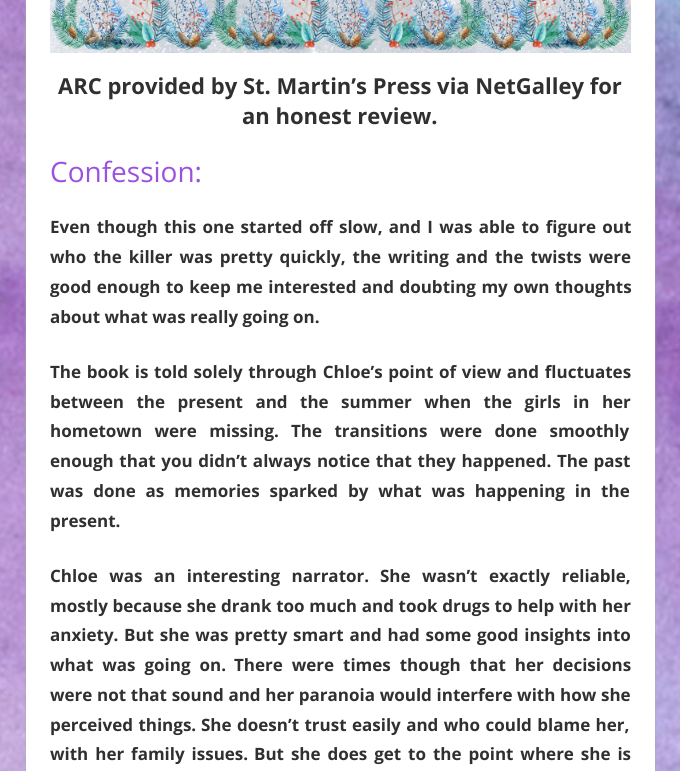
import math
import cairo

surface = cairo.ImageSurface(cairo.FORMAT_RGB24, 680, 771)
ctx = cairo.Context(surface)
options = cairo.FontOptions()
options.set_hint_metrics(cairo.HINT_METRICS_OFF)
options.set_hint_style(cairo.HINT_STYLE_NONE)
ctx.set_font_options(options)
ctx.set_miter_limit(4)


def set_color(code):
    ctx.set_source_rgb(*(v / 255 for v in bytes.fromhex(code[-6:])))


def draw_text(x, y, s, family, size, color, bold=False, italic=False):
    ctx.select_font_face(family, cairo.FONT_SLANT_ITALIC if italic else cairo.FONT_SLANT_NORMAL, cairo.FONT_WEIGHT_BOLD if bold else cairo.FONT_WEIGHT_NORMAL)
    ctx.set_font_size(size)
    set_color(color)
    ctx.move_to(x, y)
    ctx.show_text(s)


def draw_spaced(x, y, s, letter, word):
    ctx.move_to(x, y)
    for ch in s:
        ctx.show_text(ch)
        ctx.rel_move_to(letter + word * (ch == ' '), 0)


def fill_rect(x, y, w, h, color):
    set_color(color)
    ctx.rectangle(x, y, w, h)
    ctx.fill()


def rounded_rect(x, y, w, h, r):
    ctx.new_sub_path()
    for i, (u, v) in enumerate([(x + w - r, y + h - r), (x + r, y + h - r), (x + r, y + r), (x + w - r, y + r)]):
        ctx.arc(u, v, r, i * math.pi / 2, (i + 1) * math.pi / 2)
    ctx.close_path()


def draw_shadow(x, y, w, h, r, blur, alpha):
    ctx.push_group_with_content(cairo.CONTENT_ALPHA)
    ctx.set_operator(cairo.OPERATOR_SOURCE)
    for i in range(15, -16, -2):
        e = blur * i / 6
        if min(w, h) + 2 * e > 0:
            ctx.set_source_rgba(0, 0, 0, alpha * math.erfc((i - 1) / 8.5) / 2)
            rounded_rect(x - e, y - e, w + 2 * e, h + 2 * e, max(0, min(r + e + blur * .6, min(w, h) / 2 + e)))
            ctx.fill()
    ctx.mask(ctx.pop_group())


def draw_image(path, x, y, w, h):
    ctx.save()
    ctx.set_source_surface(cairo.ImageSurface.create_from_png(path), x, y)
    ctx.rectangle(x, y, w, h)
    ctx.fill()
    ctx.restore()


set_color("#ffffff")
ctx.paint()
draw_image("assets/img1.png", 0, 0, 680, 771)
set_color("#aaaaaa")
draw_shadow(26, -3, 629, 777, 0, 1, 1)
fill_rect(26, 0, 629, 771, "#ffffff")
draw_image("assets/img2.png", 50, 0, 581, 53)
draw_text(58, 94, "ARC provided by St. Martin’s Press via NetGalley for", "Open Sans", 22, "#303030", bold=True)
draw_text(242, 124, "an honest review.", "Open Sans", 22, "#303030", bold=True)
draw_text(50, 182, "Confession:", "Open Sans", 28, "#9b51e0")
ctx.select_font_face("Open Sans", cairo.FONT_SLANT_NORMAL, cairo.FONT_WEIGHT_BOLD)
ctx.set_font_size(17)
set_color("#303030")
draw_spaced(50, 233, "Even though this one started off slow, and I was able to figure out", 0, 1.9)
draw_spaced(50, 263, "who the killer was pretty quickly, the writing and the twists were", 0, 2.5)
draw_spaced(50, 293, "good enough to keep me interested and doubting my own thoughts", 0, 1)
draw_text(50, 323, "about what was really going on.", "Open Sans", 17, "#303030", bold=True)
draw_spaced(50, 378, "The book is told solely through Chloe’s point of view and fluctuates", 0, 1.25)
draw_spaced(50, 408, "between the present and the summer when the girls in her", 0, 8)
draw_spaced(50, 437, "hometown were missing.", 0, 8)
draw_spaced(291, 437, "The transitions were done smoothly", 0, 8)
draw_spaced(50, 467, "enough that you didn’t always notice that they happened.", 0, 1.25)
draw_spaced(557, 467, "The past", 0, 1)
draw_spaced(50, 497, "was done as memories sparked by what was happening in the", 0, 5.5)
draw_text(50, 527, "present.", "Open Sans", 17, "#303030", bold=True)
draw_spaced(50, 582, "Chloe was an interesting narrator.", 0, 7)
draw_spaced(380, 582, "She wasn’t exactly reliable,", 0, 7)
draw_spaced(50, 612, "mostly because she drank too much and took drugs to help with her", 0, 0.25)
draw_text(50, 641, "anxiety.", "Open Sans", 17, "#303030", bold=True)
draw_spaced(124, 641, "But she was pretty smart and had some good insights into", 0, 1.4)
draw_spaced(50, 671, "what was going on.", 0, 4.5)
draw_spaced(234, 671, "There were times though that her decisions", 0, 4.5)
draw_spaced(50, 701, "were not that sound and her paranoia would interfere with how she", 0, 0.25)
draw_spaced(50, 731, "perceived things.", 0, 1)
draw_spaced(201, 731, "She doesn’t trust easily and who could blame her,", 0, 1)
draw_spaced(50, 760, "with her family issues.", 0, 2.5)
draw_spaced(254, 760, "But she does get to the point where she is", 0, 2.5)
surface.write_to_png("output.png")
